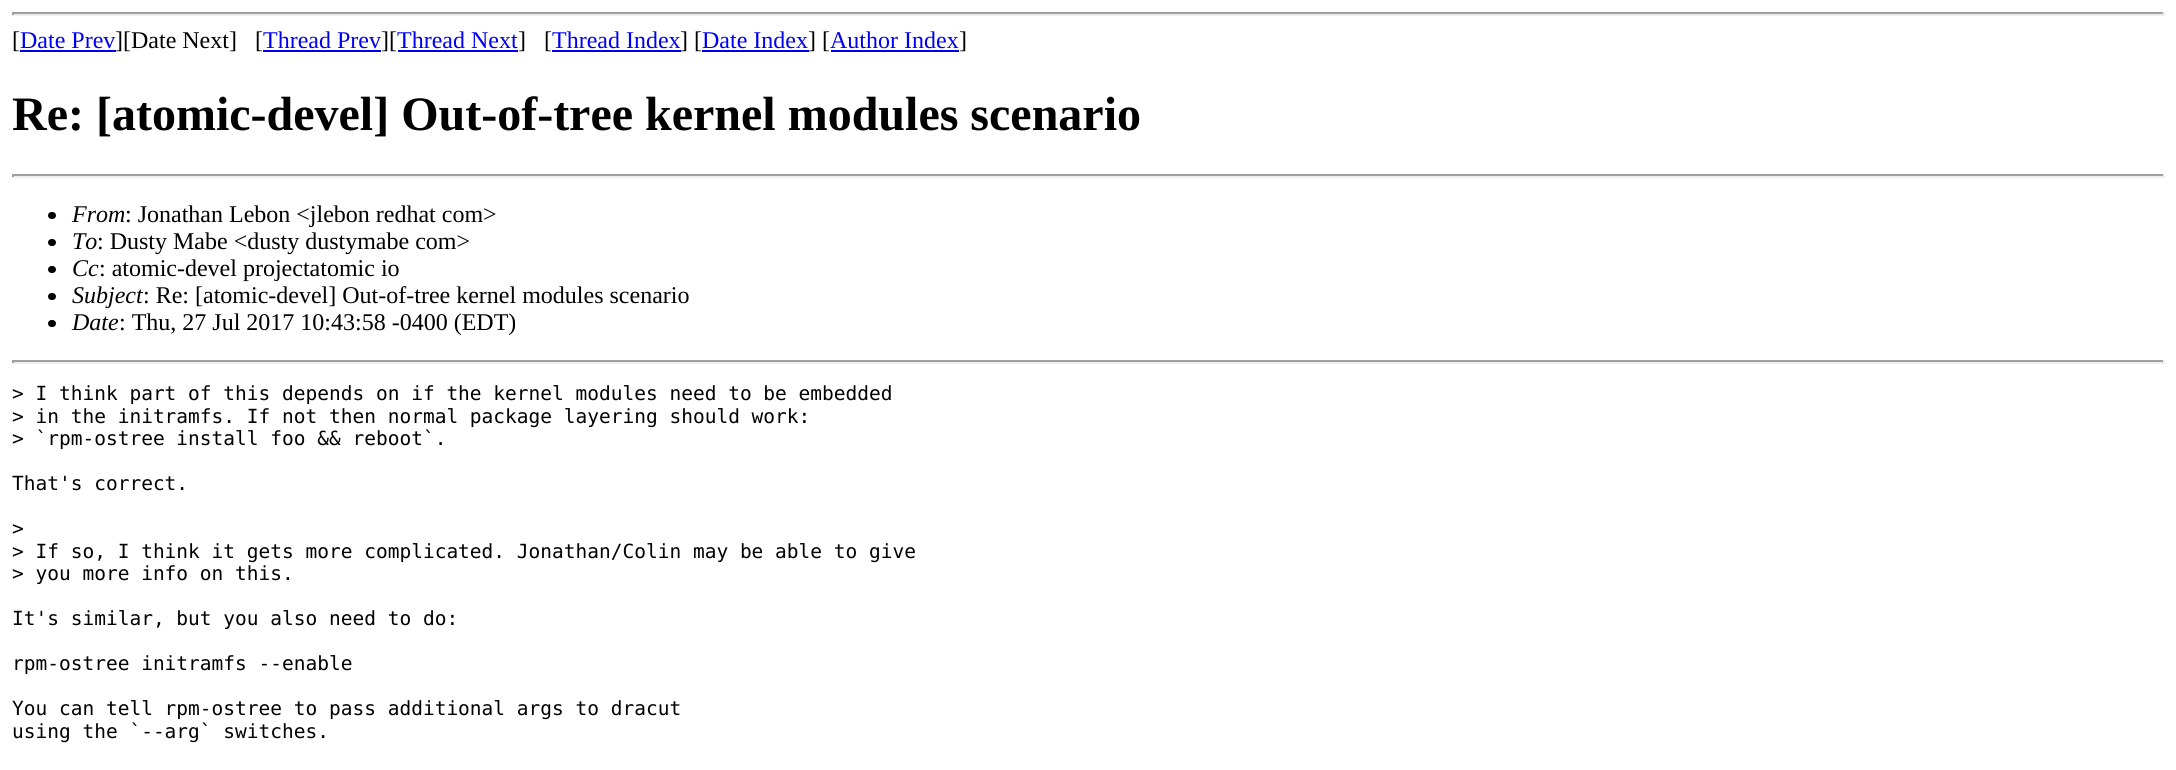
import math
import cairo

surface = cairo.ImageSurface(cairo.FORMAT_RGB24, 2176, 770)
ctx = cairo.Context(surface)
options = cairo.FontOptions()
options.set_hint_metrics(cairo.HINT_METRICS_OFF)
options.set_hint_style(cairo.HINT_STYLE_NONE)
ctx.set_font_options(options)
ctx.set_miter_limit(4)


def set_color(code):
    ctx.set_source_rgb(*(v / 255 for v in bytes.fromhex(code[-6:])))


def draw_text(x, y, s, family, size, color, bold=False, italic=False):
    ctx.select_font_face(family, cairo.FONT_SLANT_ITALIC if italic else cairo.FONT_SLANT_NORMAL, cairo.FONT_WEIGHT_BOLD if bold else cairo.FONT_WEIGHT_NORMAL)
    ctx.set_font_size(size)
    set_color(color)
    ctx.move_to(x, y)
    ctx.show_text(s)


def fill_rect(x, y, w, h, color):
    set_color(color)
    ctx.rectangle(x, y, w, h)
    ctx.fill()


def rounded_rect(x, y, w, h, r):
    ctx.new_sub_path()
    for i, (u, v) in enumerate([(x + w - r, y + h - r), (x + r, y + h - r), (x + r, y + r), (x + w - r, y + r)]):
        ctx.arc(u, v, r, i * math.pi / 2, (i + 1) * math.pi / 2)
    ctx.close_path()


set_color("#ffffff")
ctx.paint()
fill_rect(12, 12, 2153, 2, "#9f9f9f")
fill_rect(2163, 12, 2, 3, "#eeeeee")
fill_rect(12, 14, 2153, 2, "#eeeeee")
fill_rect(12, 12, 2, 3, "#9f9f9f")
draw_text(12, 48, "[", "Liberation Serif", 24, "#000000")
draw_text(20, 48, "Date Prev", "Liberation Serif", 24, "#0000ee")
fill_rect(20, 50, 96, 2, "#0000ee")
draw_text(115, 48, "][Date Next]   [", "Liberation Serif", 24, "#000000")
draw_text(263, 48, "Thread Prev", "Liberation Serif", 24, "#0000ee")
fill_rect(263, 50, 118, 2, "#0000ee")
draw_text(381, 48, "][", "Liberation Serif", 24, "#000000")
draw_text(397, 48, "Thread Next", "Liberation Serif", 24, "#0000ee")
fill_rect(398, 50, 120, 2, "#0000ee")
draw_text(518, 48, "]", "Liberation Serif", 24, "#000000")
draw_text(544, 48, "[", "Liberation Serif", 24, "#000000")
draw_text(552, 48, "Thread Index", "Liberation Serif", 24, "#0000ee")
fill_rect(552, 50, 129, 2, "#0000ee")
draw_text(680, 48, "] [", "Liberation Serif", 24, "#000000")
draw_text(702, 48, "Date Index", "Liberation Serif", 24, "#0000ee")
fill_rect(702, 50, 107, 2, "#0000ee")
draw_text(808, 48, "] [", "Liberation Serif", 24, "#000000")
draw_text(830, 48, "Author Index", "Liberation Serif", 24, "#0000ee")
fill_rect(831, 50, 128, 2, "#0000ee")
draw_text(959, 48, "]", "Liberation Serif", 24, "#000000")
draw_text(12, 130, "Re: [atomic-devel] Out-of-tree kernel modules scenario", "Liberation Serif", 48, "#000000", bold=True)
fill_rect(12, 174, 2153, 2, "#9f9f9f")
fill_rect(2163, 174, 2, 3, "#eeeeee")
fill_rect(12, 176, 2153, 2, "#eeeeee")
fill_rect(12, 174, 2, 3, "#9f9f9f")
set_color("#000000")
rounded_rect(48, 212, 8, 7, 3.5)
ctx.fill()
draw_text(72, 222, "From", "Liberation Serif", 24, "#000000", italic=True)
draw_text(125, 222, ": Jonathan Lebon <jlebon redhat com>", "Liberation Serif", 24, "#000000")
rounded_rect(48, 239, 8, 7, 3.5)
ctx.fill()
draw_text(72, 249, "To", "Liberation Serif", 24, "#000000", italic=True)
draw_text(97, 249, ": Dusty Mabe <dusty dustymabe com>", "Liberation Serif", 24, "#000000")
rounded_rect(48, 266, 8, 7, 3.5)
ctx.fill()
draw_text(72, 276, "Cc", "Liberation Serif", 24, "#000000", italic=True)
draw_text(99, 276, ": atomic-devel projectatomic io", "Liberation Serif", 24, "#000000")
rounded_rect(48, 293, 8, 7, 3.5)
ctx.fill()
draw_text(72, 303, "Subject", "Liberation Serif", 24, "#000000", italic=True)
draw_text(143, 303, ": Re: [atomic-devel] Out-of-tree kernel modules scenario", "Liberation Serif", 24, "#000000")
rounded_rect(48, 320, 8, 7, 3.5)
ctx.fill()
draw_text(72, 330, "Date", "Liberation Serif", 24, "#000000", italic=True)
draw_text(119, 330, ": Thu, 27 Jul 2017 10:43:58 -0400 (EDT)", "Liberation Serif", 24, "#000000")
fill_rect(12, 360, 2153, 2, "#9f9f9f")
fill_rect(2163, 360, 2, 3, "#eeeeee")
fill_rect(12, 362, 2153, 2, "#eeeeee")
fill_rect(12, 360, 2, 3, "#9f9f9f")
draw_text(12, 400, "> I think part of this depends on if the kernel modules need to be embedded", "DejaVu Sans Mono", 19.5, "#000000")
draw_text(12, 423, "> in the initramfs. If not then normal package layering should work:", "DejaVu Sans Mono", 19.5, "#000000")
draw_text(12, 445, "> `rpm-ostree install foo && reboot`.", "DejaVu Sans Mono", 19.5, "#000000")
draw_text(12, 490, "That's correct.", "DejaVu Sans Mono", 19.5, "#000000")
draw_text(12, 535, ">", "DejaVu Sans Mono", 19.5, "#000000")
draw_text(12, 558, "> If so, I think it gets more complicated. Jonathan/Colin may be able to give", "DejaVu Sans Mono", 19.5, "#000000")
draw_text(12, 580, "> you more info on this.", "DejaVu Sans Mono", 19.5, "#000000")
draw_text(12, 625, "It's similar, but you also need to do:", "DejaVu Sans Mono", 19.5, "#000000")
draw_text(12, 670, "rpm-ostree initramfs --enable", "DejaVu Sans Mono", 19.5, "#000000")
draw_text(12, 715, "You can tell rpm-ostree to pass additional args to dracut", "DejaVu Sans Mono", 19.5, "#000000")
draw_text(12, 738, "using the `--arg` switches.", "DejaVu Sans Mono", 19.5, "#000000")
surface.write_to_png("output.png")
